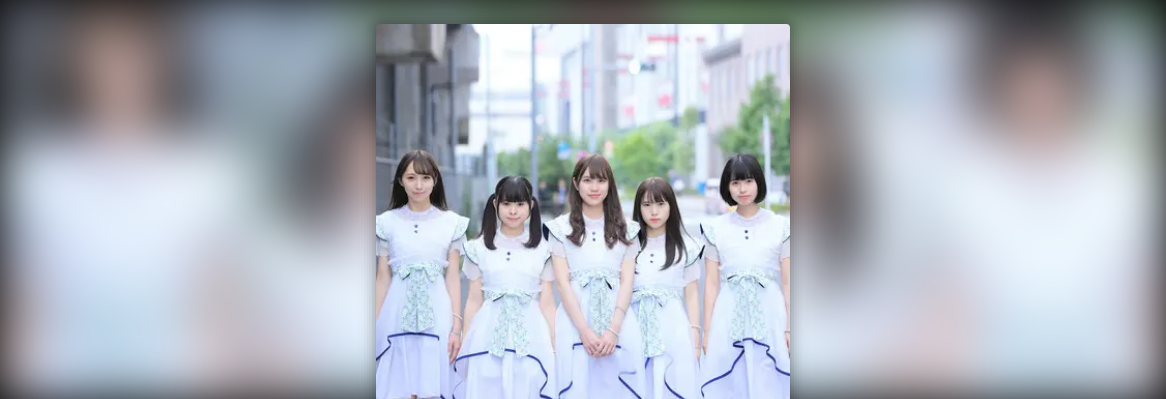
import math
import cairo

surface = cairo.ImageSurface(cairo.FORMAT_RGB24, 1166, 399)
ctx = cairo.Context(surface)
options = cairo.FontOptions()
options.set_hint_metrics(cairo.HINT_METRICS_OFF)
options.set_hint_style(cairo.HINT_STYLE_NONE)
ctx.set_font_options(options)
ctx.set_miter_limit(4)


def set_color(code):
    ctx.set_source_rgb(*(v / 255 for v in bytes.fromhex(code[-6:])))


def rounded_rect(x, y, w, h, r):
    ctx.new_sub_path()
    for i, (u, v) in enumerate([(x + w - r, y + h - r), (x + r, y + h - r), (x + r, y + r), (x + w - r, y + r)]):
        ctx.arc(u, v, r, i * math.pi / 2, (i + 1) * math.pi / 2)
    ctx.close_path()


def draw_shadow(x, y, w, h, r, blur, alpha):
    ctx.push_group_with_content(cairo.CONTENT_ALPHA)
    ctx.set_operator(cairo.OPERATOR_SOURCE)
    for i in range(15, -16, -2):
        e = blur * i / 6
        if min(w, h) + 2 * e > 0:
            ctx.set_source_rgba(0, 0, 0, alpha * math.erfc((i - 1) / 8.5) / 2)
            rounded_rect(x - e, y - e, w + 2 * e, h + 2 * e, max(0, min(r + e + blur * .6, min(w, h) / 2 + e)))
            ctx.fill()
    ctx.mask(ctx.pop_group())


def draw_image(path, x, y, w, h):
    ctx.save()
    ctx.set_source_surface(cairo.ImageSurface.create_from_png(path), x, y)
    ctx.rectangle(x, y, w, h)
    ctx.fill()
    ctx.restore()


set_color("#000000")
ctx.paint()
draw_image("assets/img1.png", 0, 0, 1166, 399)
draw_shadow(376, 24, 414, 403, 4, 8, 0.47)
draw_image("assets/img2.png", 376, 24, 414, 375)
surface.write_to_png("output.png")
